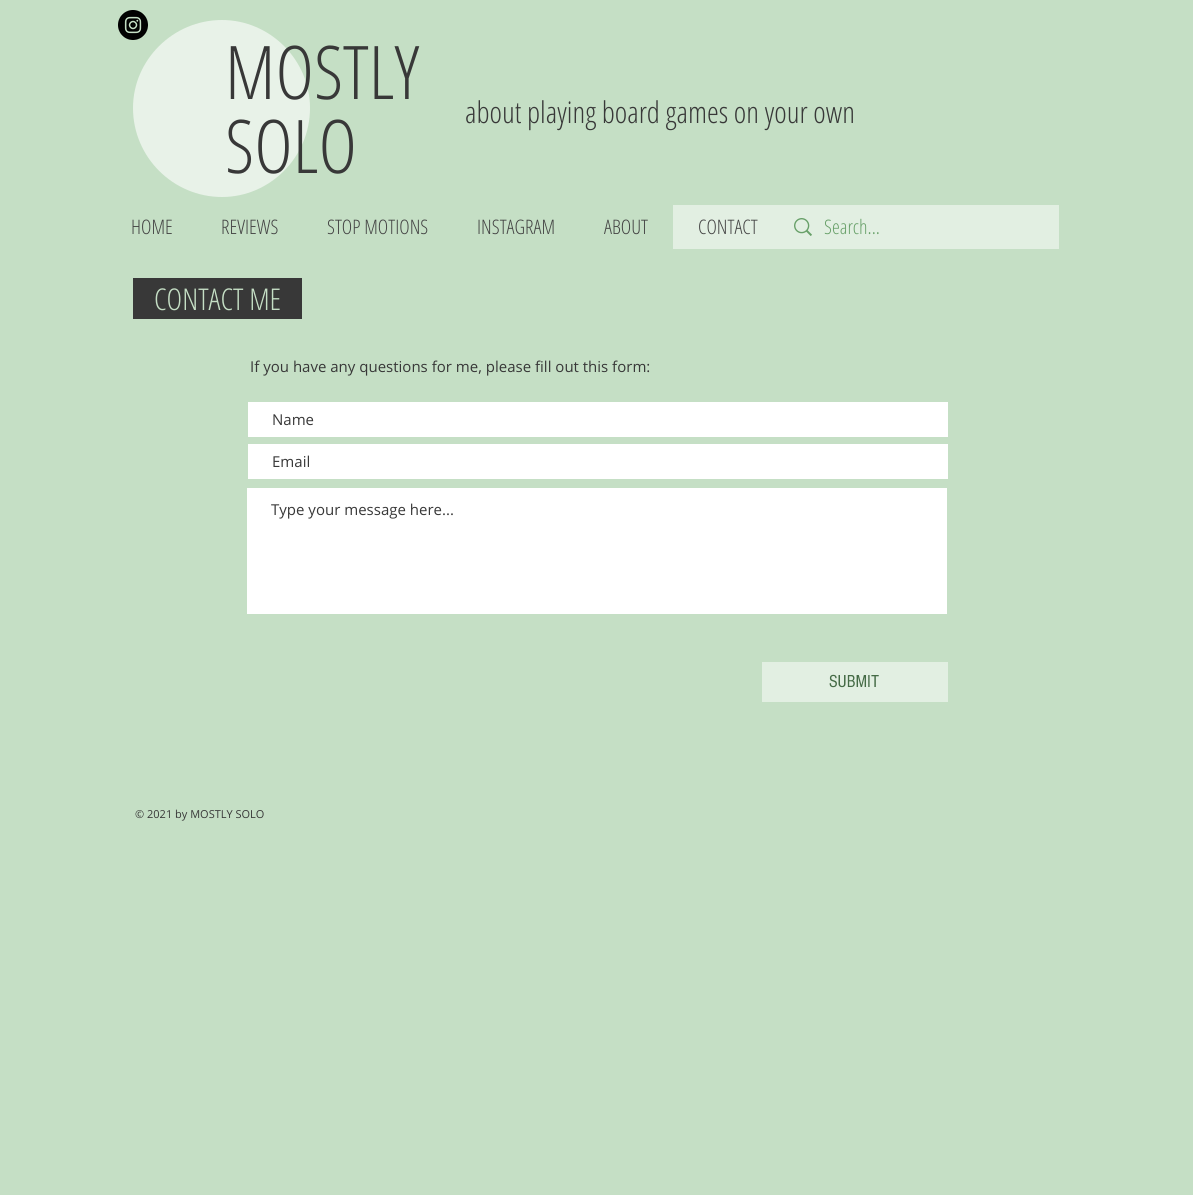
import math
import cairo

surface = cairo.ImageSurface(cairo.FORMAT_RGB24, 1193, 1195)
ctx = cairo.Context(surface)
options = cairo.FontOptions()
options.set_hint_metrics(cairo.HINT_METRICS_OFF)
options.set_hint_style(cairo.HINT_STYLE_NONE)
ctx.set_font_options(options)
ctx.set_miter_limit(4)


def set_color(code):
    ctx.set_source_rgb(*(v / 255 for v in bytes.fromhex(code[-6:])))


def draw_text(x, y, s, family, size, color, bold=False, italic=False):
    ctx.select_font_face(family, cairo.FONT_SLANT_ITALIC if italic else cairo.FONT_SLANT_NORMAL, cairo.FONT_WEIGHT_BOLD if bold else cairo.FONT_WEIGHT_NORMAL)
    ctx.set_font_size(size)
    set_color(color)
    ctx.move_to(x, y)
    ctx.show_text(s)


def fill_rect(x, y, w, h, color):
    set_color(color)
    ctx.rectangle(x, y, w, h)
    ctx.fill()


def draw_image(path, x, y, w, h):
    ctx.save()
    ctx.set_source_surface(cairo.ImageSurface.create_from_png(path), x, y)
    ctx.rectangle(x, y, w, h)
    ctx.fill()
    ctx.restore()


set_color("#c5dfc5")
ctx.paint()
set_color("#e8f2e8")
ctx.new_path()
ctx.move_to(310, 108)
ctx.curve_to(310, 157, 270, 197, 222, 197)
ctx.curve_to(173, 197, 133, 157, 133, 108)
ctx.curve_to(133, 60, 173, 20, 222, 20)
ctx.curve_to(270, 20, 310, 60, 310, 108)
ctx.close_path()
ctx.fill()
draw_image("assets/img1.png", 118, 10, 30, 30)
draw_text(225, 99, "MOSTLY", "Open Sans Condensed Light", 74, "#383838")
draw_text(225, 173, "SOLO", "Open Sans Condensed Light", 74, "#383838")
draw_text(465, 123, "about playing board games on your own", "Open Sans Condensed Light", 30, "#383838")
draw_text(131, 234, "HOME", "Open Sans Condensed Light", 20, "#444444")
draw_text(221, 234, "REVIEWS", "Open Sans Condensed Light", 20, "#444444")
draw_text(327, 234, "STOP MOTIONS", "Open Sans Condensed Light", 20, "#444444")
draw_text(477, 234, "INSTAGRAM", "Open Sans Condensed Light", 20, "#444444")
draw_text(604, 234, "ABOUT", "Open Sans Condensed Light", 20, "#444444")
fill_rect(673, 205, 386, 44, "#e2efe2")
draw_text(698, 234, "CONTACT", "Open Sans Condensed Light", 20, "#444444")
draw_image("assets/img2.png", 794, 218, 18, 18)
draw_text(824, 234, "Search...", "Open Sans Condensed Light", 20, "#68a069")
fill_rect(133, 278, 169, 41, "#383838")
draw_text(154, 310, "CONTACT ME", "Open Sans Condensed Light", 30, "#c5dfc5")
draw_text(250, 372, "If you have any questions for me, please fill out this form:", "Open Sans", 15, "#383838")
fill_rect(248, 402, 700, 35, "#ffffff")
draw_text(272, 425, "Name", "Open Sans", 15, "#383838")
fill_rect(248, 444, 700, 35, "#ffffff")
draw_text(272, 467, "Email", "Open Sans", 15, "#383838")
fill_rect(247, 488, 700, 126, "#ffffff")
draw_text(271, 515, "Type your message here...", "Open Sans", 15, "#383838")
fill_rect(762, 662, 186, 40, "#e2efe2")
draw_text(829, 687, "SUBMIT", "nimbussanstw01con", 18, "#456b46")
draw_text(135, 818, "© 2021 by MOSTLY SOLO", "Open Sans", 11, "#383838")
surface.write_to_png("output.png")
